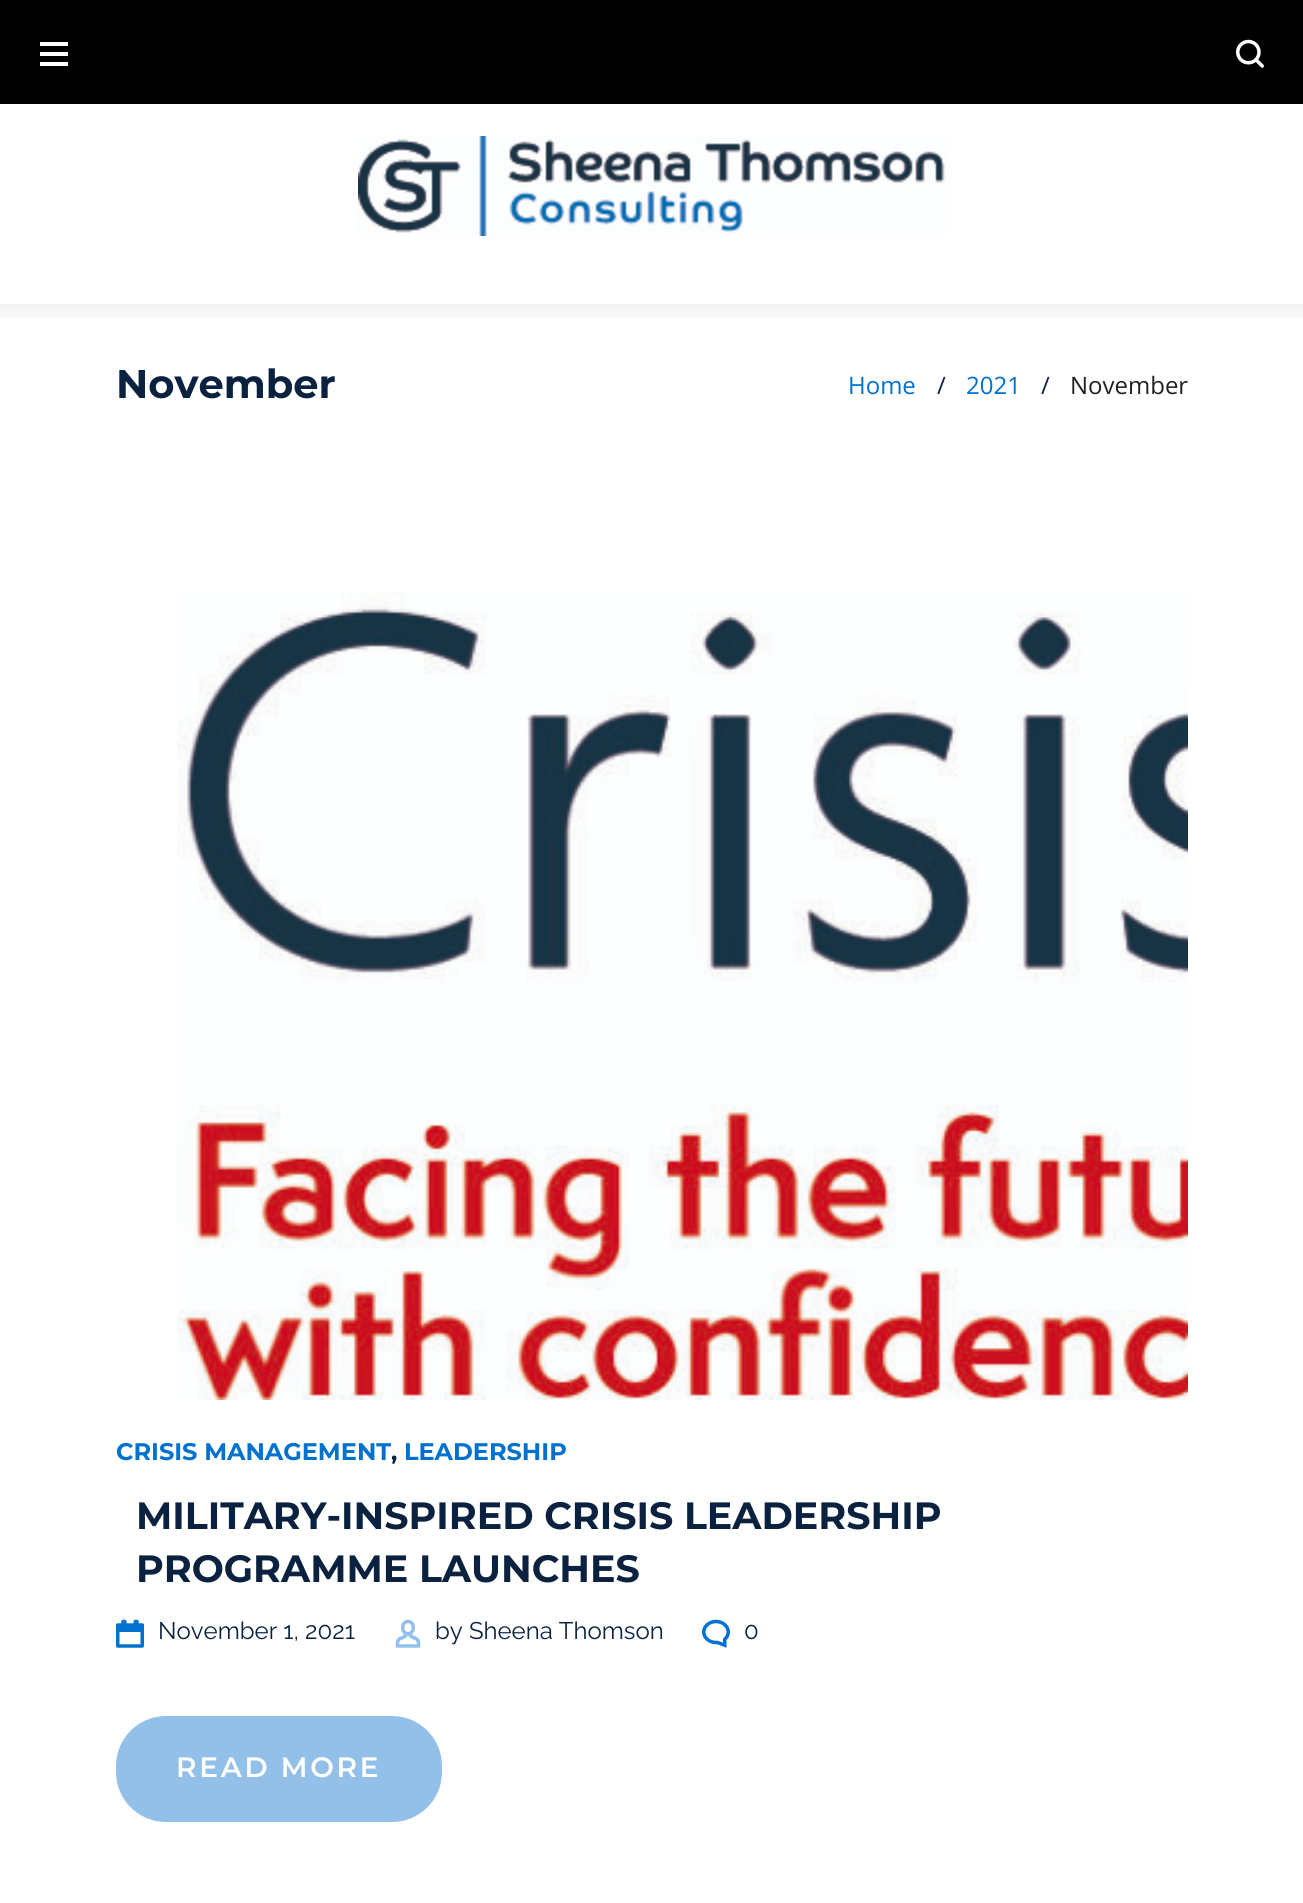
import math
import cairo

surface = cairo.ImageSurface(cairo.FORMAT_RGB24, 1303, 1903)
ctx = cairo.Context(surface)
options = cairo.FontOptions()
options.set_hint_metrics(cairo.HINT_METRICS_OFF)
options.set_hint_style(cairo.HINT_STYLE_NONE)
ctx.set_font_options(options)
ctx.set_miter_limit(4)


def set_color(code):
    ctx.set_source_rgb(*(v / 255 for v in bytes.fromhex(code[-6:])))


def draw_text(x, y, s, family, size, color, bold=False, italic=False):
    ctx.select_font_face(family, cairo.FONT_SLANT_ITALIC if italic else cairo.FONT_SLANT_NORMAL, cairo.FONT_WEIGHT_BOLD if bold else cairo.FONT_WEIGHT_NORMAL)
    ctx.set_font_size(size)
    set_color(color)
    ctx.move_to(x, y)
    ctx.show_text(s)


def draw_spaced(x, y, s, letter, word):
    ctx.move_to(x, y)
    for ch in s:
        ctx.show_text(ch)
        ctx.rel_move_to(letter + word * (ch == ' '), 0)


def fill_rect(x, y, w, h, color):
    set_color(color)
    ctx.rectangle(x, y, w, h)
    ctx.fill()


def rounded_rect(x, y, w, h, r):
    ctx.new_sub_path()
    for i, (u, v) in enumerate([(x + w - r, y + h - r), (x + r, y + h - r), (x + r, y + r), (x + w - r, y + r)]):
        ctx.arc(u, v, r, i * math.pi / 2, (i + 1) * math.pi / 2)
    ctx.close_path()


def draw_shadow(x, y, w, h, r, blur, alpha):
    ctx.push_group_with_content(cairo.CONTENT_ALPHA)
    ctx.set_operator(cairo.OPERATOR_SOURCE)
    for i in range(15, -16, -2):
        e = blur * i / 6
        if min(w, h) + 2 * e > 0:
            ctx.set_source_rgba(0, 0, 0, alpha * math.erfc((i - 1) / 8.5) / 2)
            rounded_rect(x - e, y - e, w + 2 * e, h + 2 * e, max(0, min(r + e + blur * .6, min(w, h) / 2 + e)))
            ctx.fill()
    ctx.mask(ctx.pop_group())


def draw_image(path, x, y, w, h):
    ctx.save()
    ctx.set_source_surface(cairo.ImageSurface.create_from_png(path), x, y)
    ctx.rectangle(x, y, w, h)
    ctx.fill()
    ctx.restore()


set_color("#ffffff")
ctx.paint()
ctx.save()
ctx.rectangle(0, 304, 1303, 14)
ctx.clip()
set_color("#000000")
draw_shadow(-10, 94, 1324, 220, 0, 10, 0.06)
ctx.restore()
fill_rect(0, 0, 1303, 104, "#000000")
fill_rect(40, 52, 28, 4, "#ffffff")
fill_rect(40, 42, 28, 4, "#ffffff")
fill_rect(40, 62, 28, 4, "#ffffff")
draw_image("assets/img1.png", 1236, 39, 28, 29)
draw_image("assets/img2.png", 358, 136, 590, 100)
draw_text(116, 398, "November", "Montserrat", 40, "#0a2240", bold=True)
draw_text(848, 394, "Home", "Open Sans", 24, "#0071ce")
draw_text(937, 394, "/", "Open Sans", 24, "#0a2240")
draw_text(966, 394, "2021", "Open Sans", 24, "#0071ce")
draw_text(1041, 394, "/", "Open Sans", 24, "#0a2240")
draw_text(1070, 394, "November", "Open Sans", 24, "#212121")
draw_image("assets/img3.png", 177, 592, 1011, 808)
draw_text(116, 1460, "CRISIS MANAGEMENT", "Montserrat", 24, "#0071ce", bold=True)
draw_text(391, 1460, ",", "Montserrat", 24, "#0a2240", bold=True)
draw_text(404, 1460, "LEADERSHIP", "Montserrat", 24, "#0071ce", bold=True)
draw_text(136, 1529, "MILITARY-INSPIRED CRISIS LEADERSHIP", "Montserrat", 38, "#0a2240", bold=True)
draw_text(136, 1582, "PROGRAMME LAUNCHES", "Montserrat", 38, "#0a2240", bold=True)
draw_image("assets/img4.png", 116, 1619, 28, 29)
draw_text(158, 1639, "November 1, 2021", "Raleway", 24, "#0a2240")
draw_image("assets/img5.png", 395, 1619, 26, 29)
draw_text(435, 1639, "by Sheena Thomson", "Raleway", 24, "#0a2240")
draw_image("assets/img6.png", 702, 1619, 28, 29)
draw_text(744, 1639, "0", "Raleway", 24, "#0a2240")
set_color("#92c0e9")
rounded_rect(116, 1716, 326, 106, 50)
ctx.fill()
ctx.select_font_face("Montserrat SemiBold")
ctx.set_font_size(28)
set_color("#ffffff")
draw_spaced(176, 1777, "READ MORE", 2.75, 0)
surface.write_to_png("output.png")
